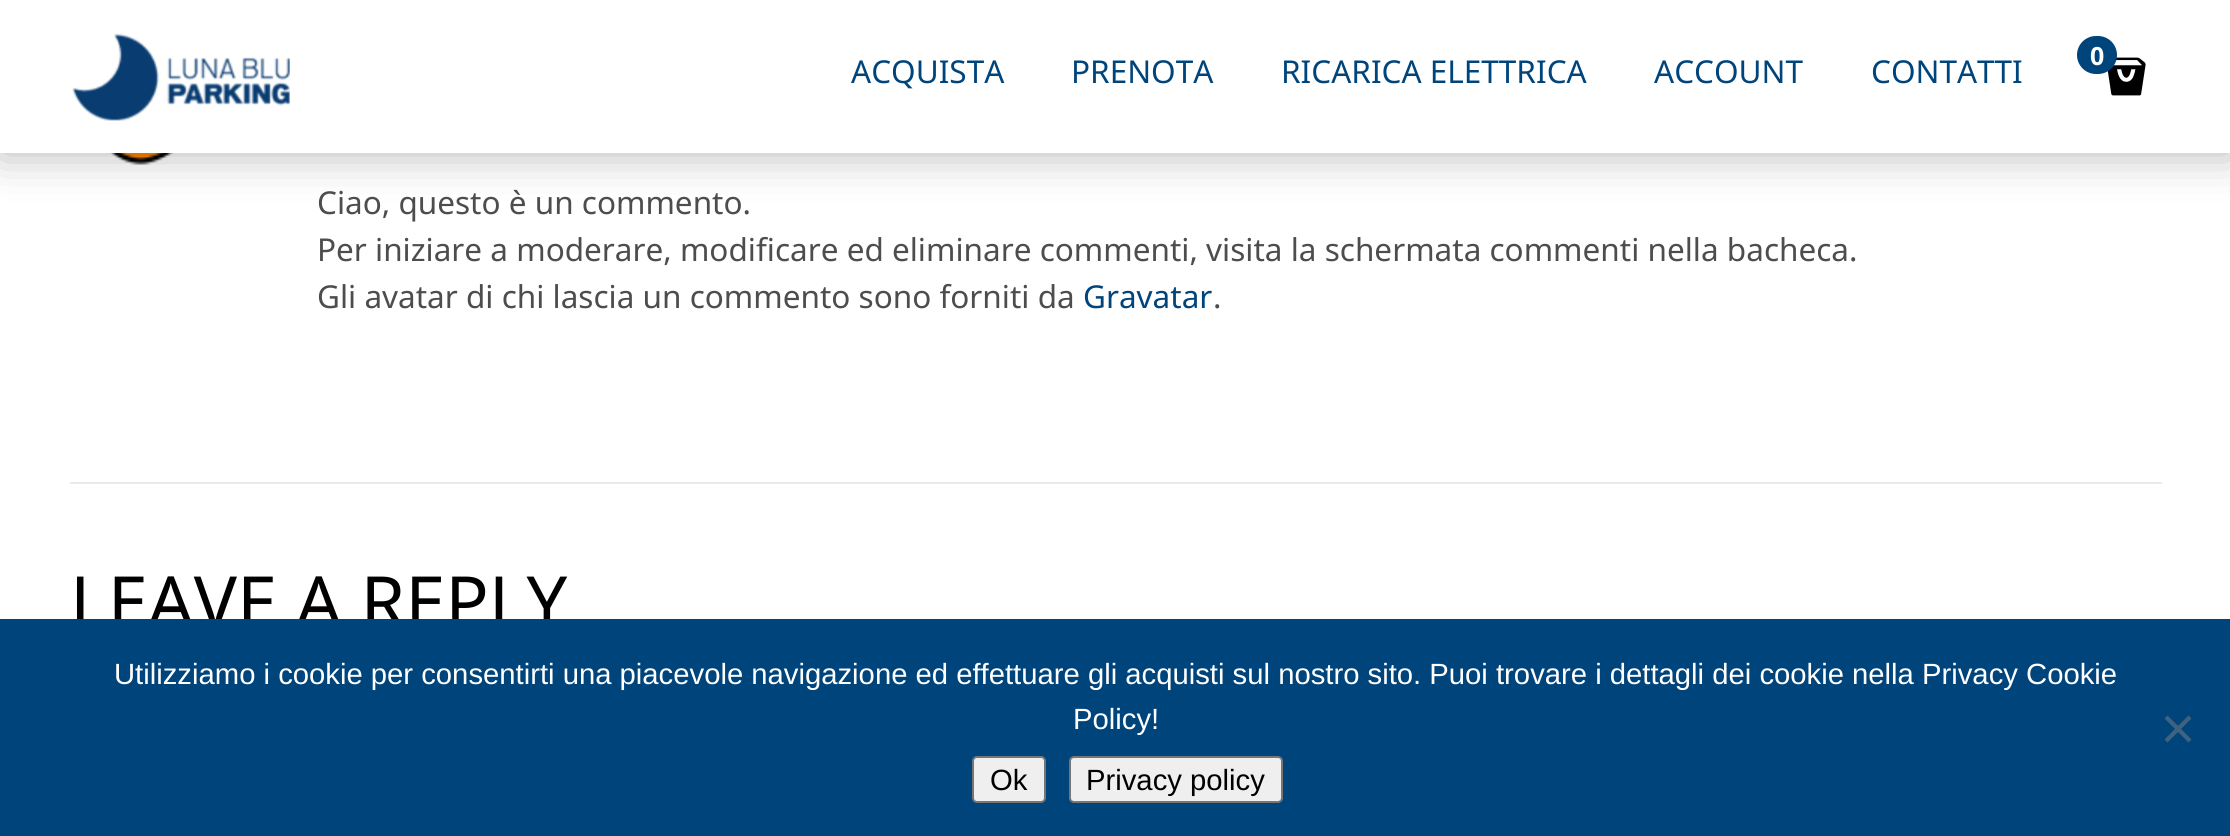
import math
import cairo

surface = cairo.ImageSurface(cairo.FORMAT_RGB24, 2230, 836)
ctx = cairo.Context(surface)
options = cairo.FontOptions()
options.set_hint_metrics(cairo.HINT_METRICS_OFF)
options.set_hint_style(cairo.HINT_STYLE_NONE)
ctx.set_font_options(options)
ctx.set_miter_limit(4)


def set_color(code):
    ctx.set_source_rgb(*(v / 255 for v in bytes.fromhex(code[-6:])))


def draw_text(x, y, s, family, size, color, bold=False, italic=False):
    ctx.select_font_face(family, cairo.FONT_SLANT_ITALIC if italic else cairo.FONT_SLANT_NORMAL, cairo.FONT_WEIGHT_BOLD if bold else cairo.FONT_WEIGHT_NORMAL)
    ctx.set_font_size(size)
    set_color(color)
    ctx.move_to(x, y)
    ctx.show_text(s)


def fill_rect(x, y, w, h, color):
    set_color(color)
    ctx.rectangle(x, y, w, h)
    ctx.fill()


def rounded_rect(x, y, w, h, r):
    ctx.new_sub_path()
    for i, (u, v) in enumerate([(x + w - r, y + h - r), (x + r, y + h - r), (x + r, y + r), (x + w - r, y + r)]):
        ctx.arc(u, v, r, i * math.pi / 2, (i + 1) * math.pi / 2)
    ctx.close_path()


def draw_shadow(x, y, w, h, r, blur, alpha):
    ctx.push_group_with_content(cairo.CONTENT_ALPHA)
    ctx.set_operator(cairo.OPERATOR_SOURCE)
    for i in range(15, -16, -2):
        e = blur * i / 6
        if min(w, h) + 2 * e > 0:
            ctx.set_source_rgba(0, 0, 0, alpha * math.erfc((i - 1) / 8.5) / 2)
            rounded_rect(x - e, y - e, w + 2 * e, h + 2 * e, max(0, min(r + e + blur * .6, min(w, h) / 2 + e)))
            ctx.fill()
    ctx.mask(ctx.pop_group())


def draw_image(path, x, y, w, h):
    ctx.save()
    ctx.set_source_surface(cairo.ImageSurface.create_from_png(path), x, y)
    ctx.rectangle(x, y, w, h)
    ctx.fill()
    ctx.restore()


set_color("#ffffff")
ctx.paint()
draw_image("assets/img3.png", 110, 153, 64, 12)
set_color("#000000")
draw_shadow(0, 0, 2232, 153, 0, 22.5, 0.3)
fill_rect(0, 0, 2230, 153, "#ffffff")
draw_image("assets/img1.png", 72, 33, 218, 88)
draw_image("assets/img2.png", 2107, 57, 39, 39)
set_color("#00447c")
rounded_rect(2077, 36, 40, 38, 19)
ctx.fill()
draw_text(2090, 65, "0", "Noto Sans", 25, "#ffffff", bold=True)
draw_text(851, 83, "ACQUISTA", "Noto Sans", 31.5, "#00447c")
draw_text(1071, 83, "PRENOTA", "Noto Sans", 31.5, "#00447c")
draw_text(1281, 83, "RICARICA ELETTRICA", "Noto Sans", 31.5, "#00447c")
draw_text(1654, 83, "ACCOUNT", "Noto Sans", 31.5, "#00447c")
draw_text(1871, 83, "CONTATTI", "Noto Sans", 31.5, "#00447c")
draw_text(317, 214, "Ciao, questo è un commento.", "Noto Sans", 31.5, "#4d4d4d")
draw_text(317, 261, "Per iniziare a moderare, modificare ed eliminare commenti, visita la schermata commenti nella bacheca.", "Noto Sans", 31.5, "#4d4d4d")
draw_text(317, 308, "Gli avatar di chi lascia un commento sono forniti da", "Noto Sans", 31.5, "#4d4d4d")
draw_text(1083, 308, "Gravatar", "Noto Sans", 31.5, "#00447c")
draw_text(1213, 308, ".", "Noto Sans", 31.5, "#4d4d4d")
fill_rect(70, 482, 2092, 2, "#eaeaea")
draw_text(70, 628, "LEAVE A REPLY", "Noto Sans", 72, "#000000")
fill_rect(0, 619, 2230, 217, "#00447c")
draw_text(114, 684, "Utilizziamo i cookie per consentirti una piacevole navigazione ed effettuare gli acquisti sul nostro sito. Puoi trovare i dettagli dei cookie nella Privacy Cookie", "Liberation Sans", 29.25, "#ffffff")
draw_text(1073, 729, "Policy!", "Liberation Sans", 29.25, "#ffffff")
set_color("#40627e")
ctx.new_path()
ctx.move_to(2188.5, 715.5)
ctx.line_to(2191.5, 718.5)
ctx.line_to(2167.5, 742.5)
ctx.line_to(2164.5, 739.5)
ctx.close_path()
ctx.fill()
ctx.new_path()
ctx.move_to(2164.5, 718.5)
ctx.line_to(2167.5, 715.5)
ctx.line_to(2191.5, 739.5)
ctx.line_to(2188.5, 742.5)
ctx.close_path()
ctx.fill()
set_color("#efefef")
rounded_rect(973, 757, 72, 45, 4)
ctx.fill_preserve()
set_color("#767676")
ctx.stroke()
draw_text(990, 790, "Ok", "Liberation Sans", 29.25, "#000000")
set_color("#efefef")
rounded_rect(1070, 757, 212, 45, 4)
ctx.fill_preserve()
set_color("#767676")
ctx.stroke()
draw_text(1086, 790, "Privacy policy", "Liberation Sans", 29.25, "#000000")
surface.write_to_png("output.png")
